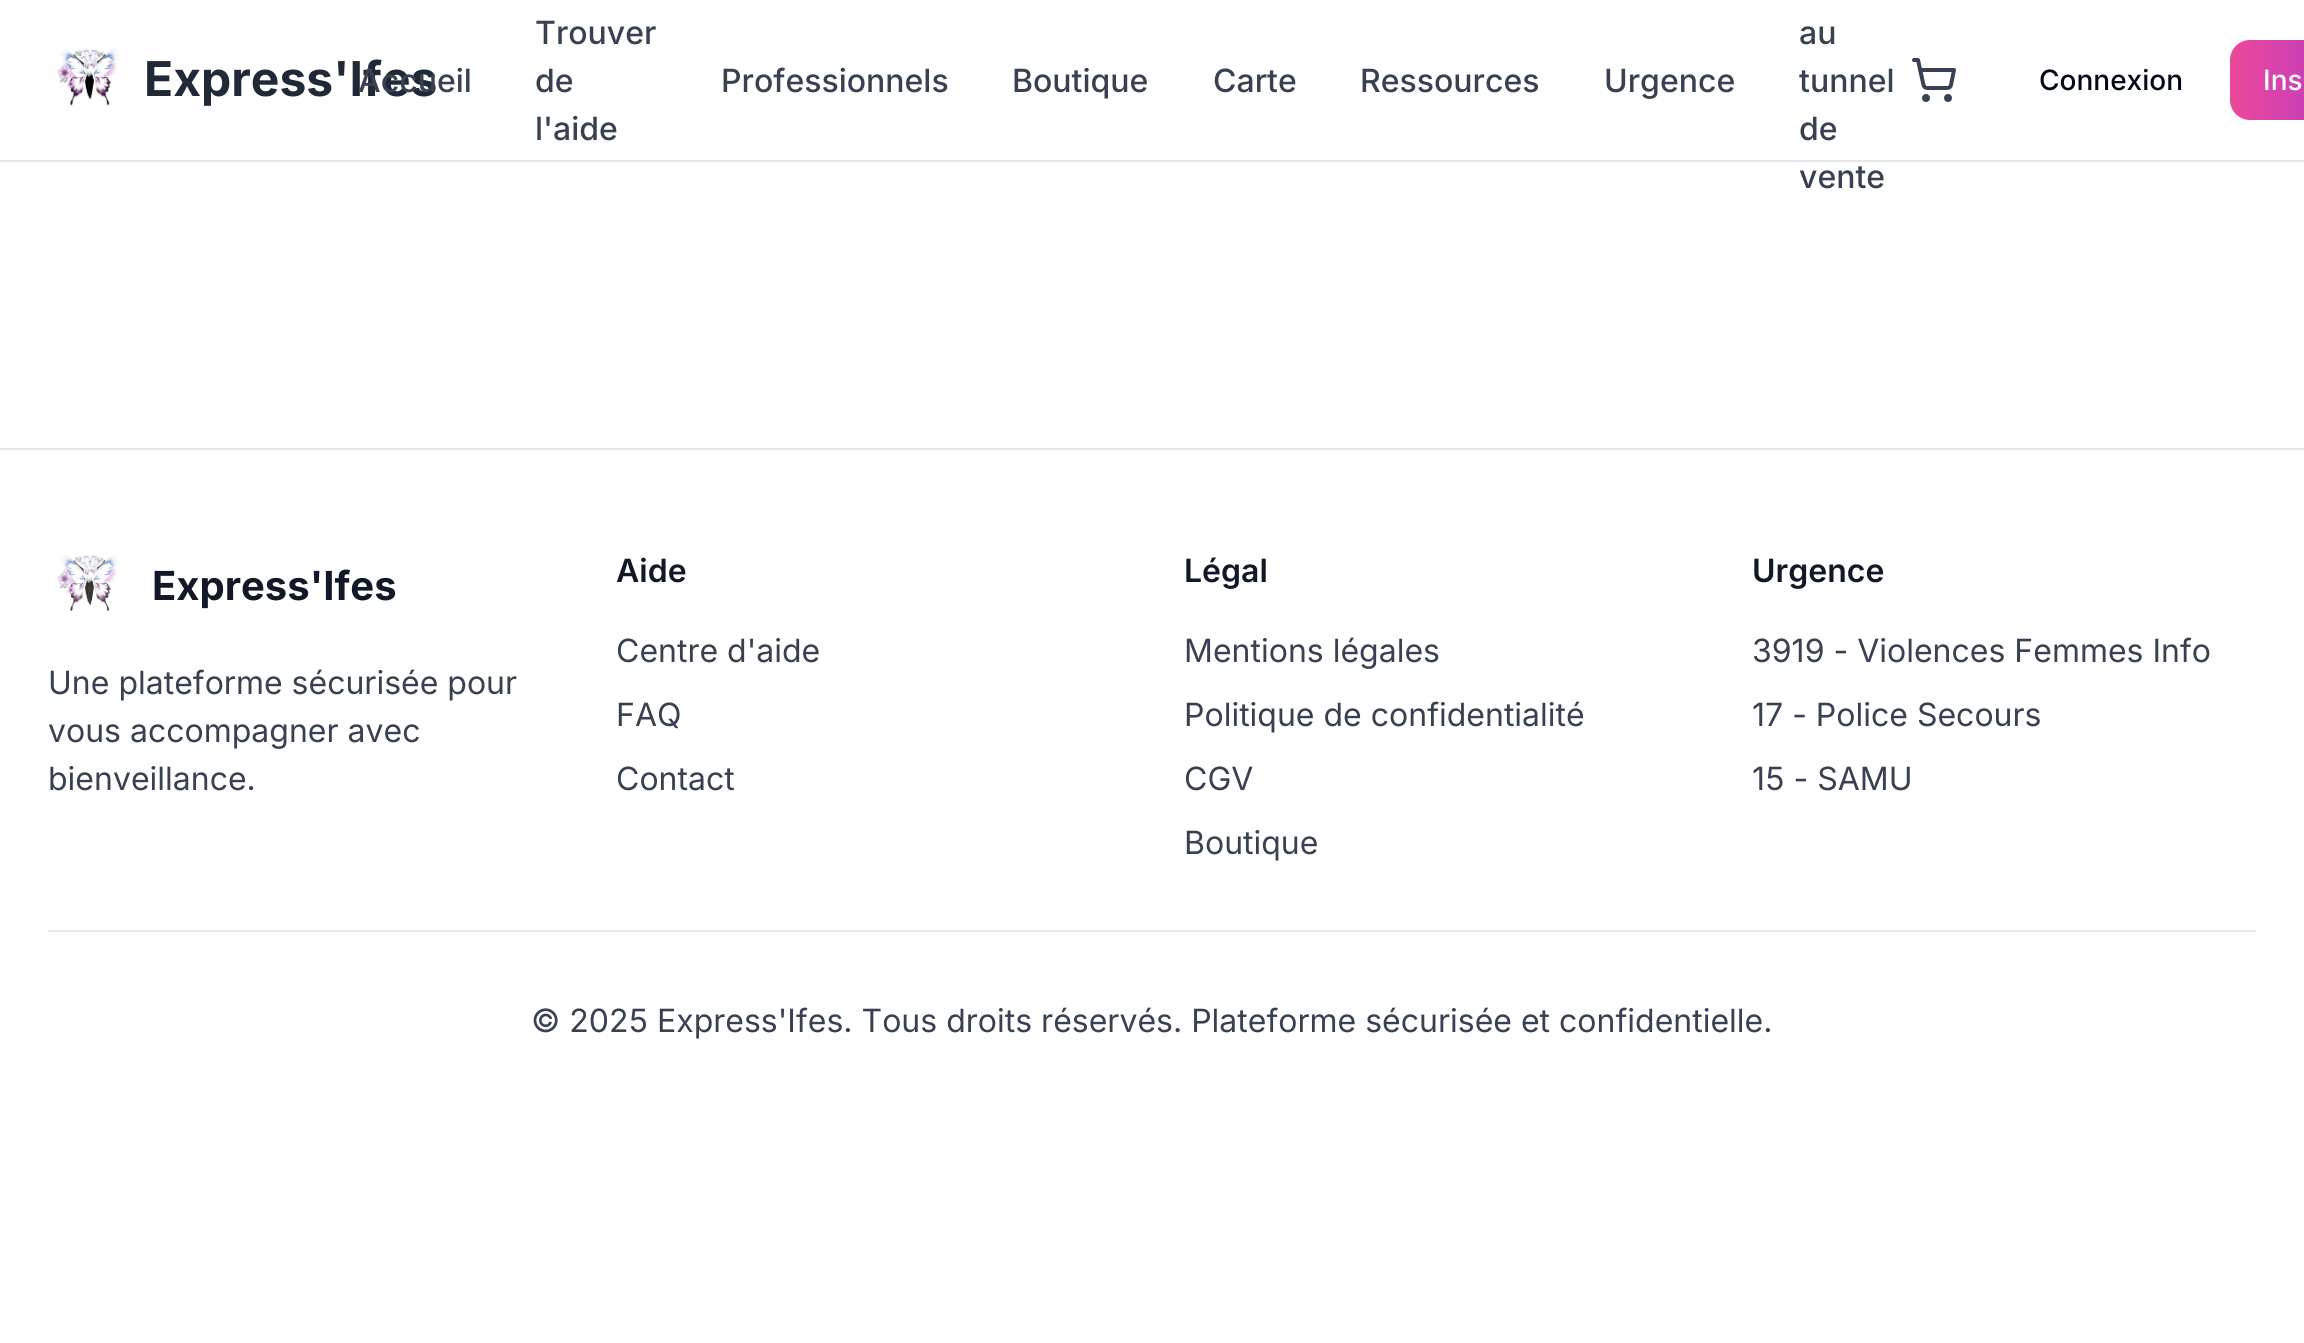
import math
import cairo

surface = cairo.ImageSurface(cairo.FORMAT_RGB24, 2304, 1343)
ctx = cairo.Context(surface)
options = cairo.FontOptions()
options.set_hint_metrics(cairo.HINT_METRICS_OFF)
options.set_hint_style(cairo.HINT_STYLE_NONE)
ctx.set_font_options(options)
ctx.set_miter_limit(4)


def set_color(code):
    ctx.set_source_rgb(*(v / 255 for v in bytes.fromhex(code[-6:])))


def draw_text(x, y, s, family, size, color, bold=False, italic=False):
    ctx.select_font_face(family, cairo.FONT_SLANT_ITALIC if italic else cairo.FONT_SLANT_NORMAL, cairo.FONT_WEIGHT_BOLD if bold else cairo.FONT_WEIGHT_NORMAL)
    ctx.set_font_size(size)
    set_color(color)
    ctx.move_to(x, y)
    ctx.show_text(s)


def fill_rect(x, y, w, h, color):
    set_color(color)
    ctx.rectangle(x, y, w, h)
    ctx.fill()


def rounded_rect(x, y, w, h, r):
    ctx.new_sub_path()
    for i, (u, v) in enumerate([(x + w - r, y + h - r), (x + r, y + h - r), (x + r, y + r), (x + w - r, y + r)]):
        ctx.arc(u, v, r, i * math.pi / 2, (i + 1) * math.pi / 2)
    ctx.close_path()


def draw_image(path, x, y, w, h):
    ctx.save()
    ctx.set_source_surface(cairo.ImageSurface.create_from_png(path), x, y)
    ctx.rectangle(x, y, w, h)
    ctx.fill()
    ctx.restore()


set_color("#ffffff")
ctx.paint()
fill_rect(0, 160, 2304, 2, "#e5e7eb")
draw_image("assets/img1.png", 57, 49, 61, 57)
draw_text(144, 96, "Express'Ifes", "Inter", 48, "#1f2937", bold=True)
draw_text(358, 92, "Accueil", "Inter Medium", 32, "#374151")
draw_text(535, 44, "Trouver", "Inter Medium", 32, "#374151")
draw_text(535, 92, "de", "Inter Medium", 32, "#374151")
draw_text(535, 140, "l'aide", "Inter Medium", 32, "#374151")
draw_text(721, 92, "Professionnels", "Inter Medium", 32, "#374151")
draw_text(1012, 92, "Boutique", "Inter Medium", 32, "#374151")
draw_text(1213, 92, "Carte", "Inter Medium", 32, "#374151")
draw_text(1360, 92, "Ressources", "Inter Medium", 32, "#374151")
draw_text(1604, 92, "Urgence", "Inter Medium", 32, "#374151")
draw_text(1799, 44, "au", "Inter Medium", 32, "#374151")
draw_text(1799, 92, "tunnel", "Inter Medium", 32, "#374151")
draw_text(1799, 140, "de", "Inter Medium", 32, "#374151")
draw_text(1799, 188, "vente", "Inter Medium", 32, "#374151")
ctx.new_path()
ctx.arc(1926, 98, 2, 0, 2 * math.pi)
ctx.set_line_width(4)
ctx.stroke()
ctx.arc(1948, 98, 2, 0, 2 * math.pi)
ctx.stroke()
ctx.new_path()
ctx.move_to(1914, 60)
ctx.line_to(1918, 60)
ctx.line_to(1923.5, 85)
ctx.curve_to(1924, 87, 1925.5, 88, 1927.5, 88)
ctx.line_to(1947, 88)
ctx.curve_to(1949, 88, 1950.5, 87, 1951, 85)
ctx.line_to(1954, 70)
ctx.line_to(1920, 70)
ctx.set_line_cap(cairo.LINE_CAP_ROUND)
ctx.set_line_join(cairo.LINE_JOIN_ROUND)
ctx.stroke()
draw_text(2039, 90, "Connexion", "Inter Medium", 28, "#020817")
gradient = cairo.LinearGradient(2230, 80, 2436, 80)
gradient.add_color_stop_rgba(0, 0.925, 0.282, 0.6, 1)
gradient.add_color_stop_rgba(1, 0.576, 0.2, 0.918, 1)
ctx.set_source(gradient)
rounded_rect(2230, 40, 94, 80, 20)
ctx.fill()
draw_text(2263, 90, "Ins", "Inter Medium", 28, "#ffffff")
fill_rect(0, 448, 2304, 2, "#e5e7eb")
draw_image("assets/img2.png", 57, 555, 61, 56)
draw_text(152, 600, "Express'Ifes", "Inter", 40, "#111827", bold=True)
draw_text(48, 694, "Une plateforme sécurisée pour", "Inter", 32, "#374151")
draw_text(48, 742, "vous accompagner avec", "Inter", 32, "#374151")
draw_text(48, 790, "bienveillance.", "Inter", 32, "#374151")
draw_text(616, 582, "Aide", "Inter SemiBold", 32, "#111827")
draw_text(616, 662, "Centre d'aide", "Inter", 32, "#374151")
draw_text(616, 726, "FAQ", "Inter", 32, "#374151")
draw_text(616, 790, "Contact", "Inter", 32, "#374151")
draw_text(1184, 582, "Légal", "Inter SemiBold", 32, "#111827")
draw_text(1184, 662, "Mentions légales", "Inter", 32, "#374151")
draw_text(1184, 726, "Politique de confidentialité", "Inter", 32, "#374151")
draw_text(1184, 790, "CGV", "Inter", 32, "#374151")
draw_text(1184, 854, "Boutique", "Inter", 32, "#374151")
draw_text(1752, 582, "Urgence", "Inter SemiBold", 32, "#111827")
draw_text(1752, 662, "3919 - Violences Femmes Info", "Inter", 32, "#374151")
draw_text(1752, 726, "17 - Police Secours", "Inter", 32, "#374151")
draw_text(1752, 790, "15 - SAMU", "Inter", 32, "#374151")
fill_rect(48, 930, 2208, 2, "#e5e7eb")
draw_text(531, 1032, "© 2025 Express'Ifes. Tous droits réservés. Plateforme sécurisée et confidentielle.", "Inter", 32, "#374151")
surface.write_to_png("output.png")
